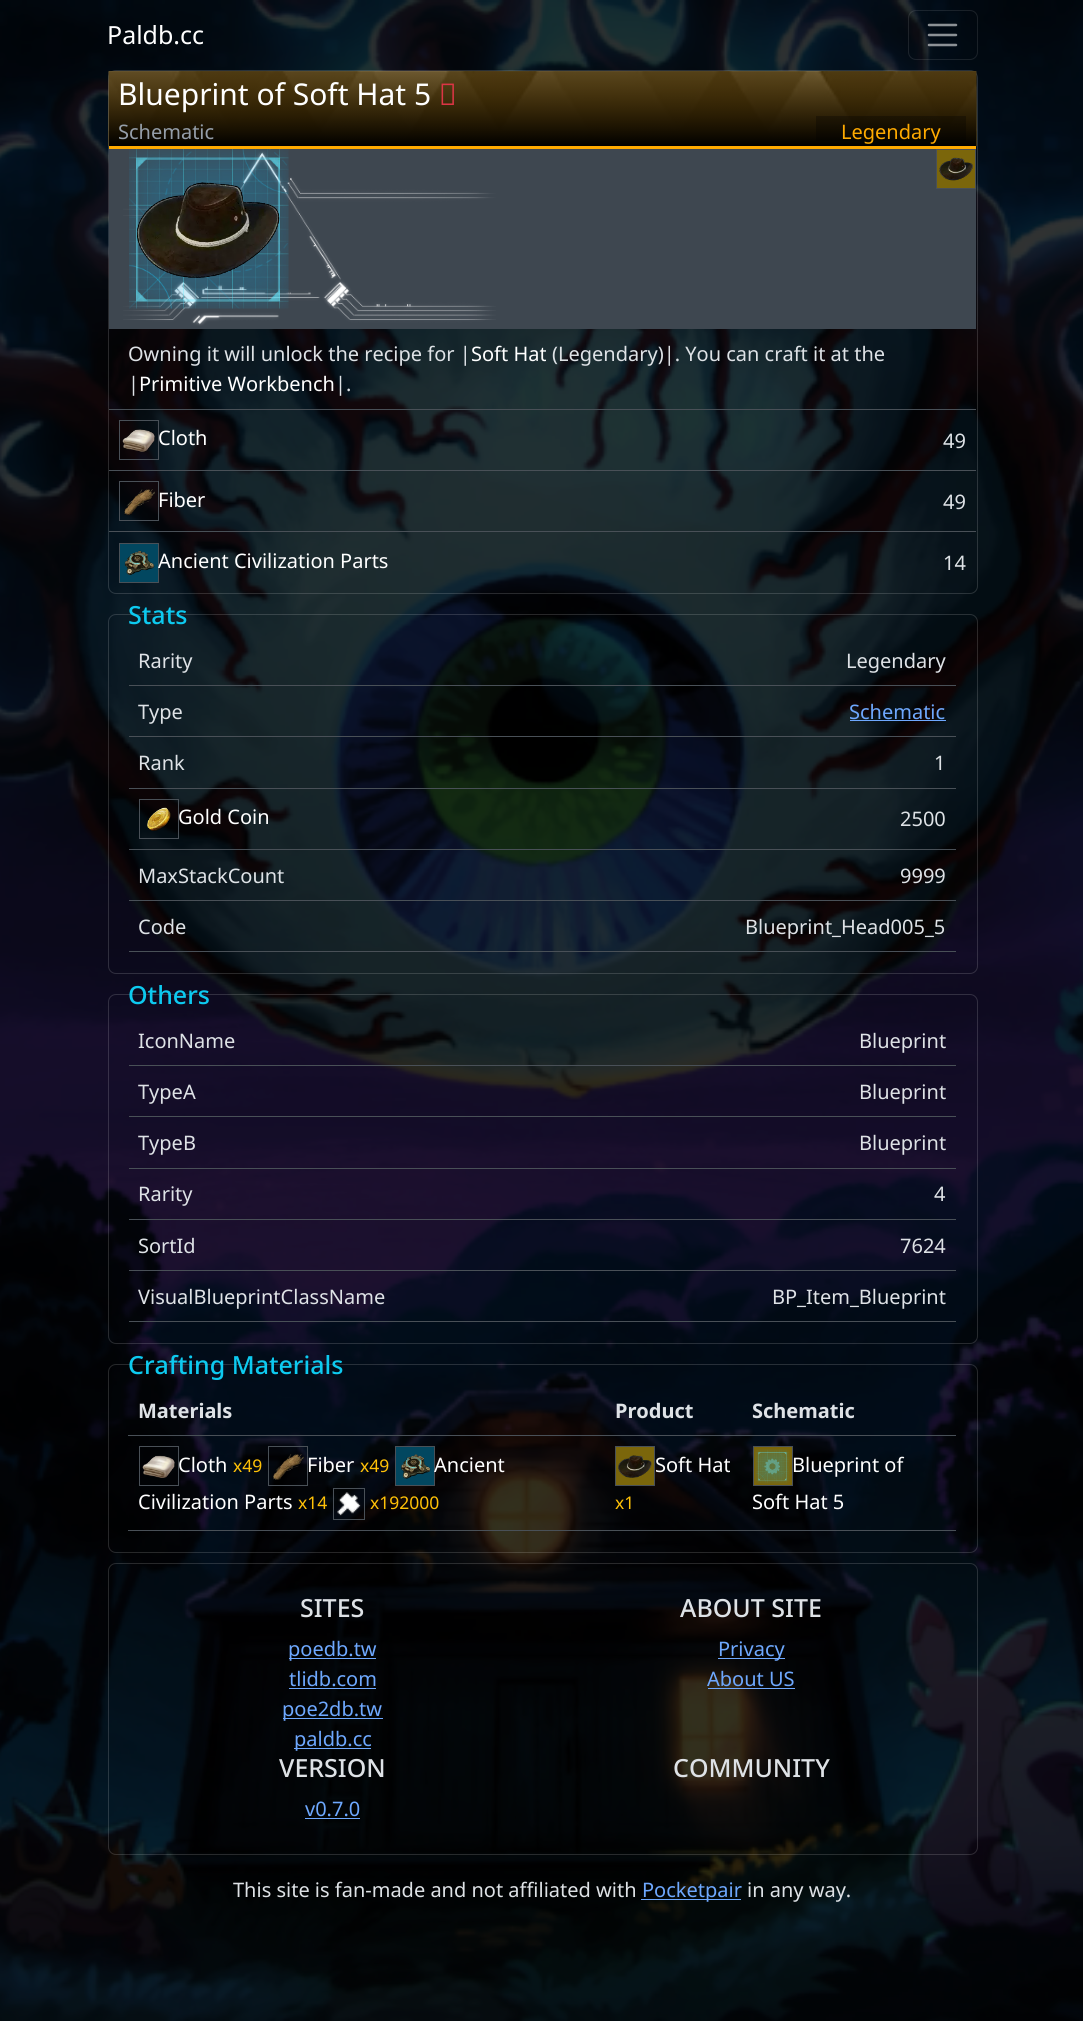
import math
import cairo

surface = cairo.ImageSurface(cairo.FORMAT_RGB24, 1083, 2021)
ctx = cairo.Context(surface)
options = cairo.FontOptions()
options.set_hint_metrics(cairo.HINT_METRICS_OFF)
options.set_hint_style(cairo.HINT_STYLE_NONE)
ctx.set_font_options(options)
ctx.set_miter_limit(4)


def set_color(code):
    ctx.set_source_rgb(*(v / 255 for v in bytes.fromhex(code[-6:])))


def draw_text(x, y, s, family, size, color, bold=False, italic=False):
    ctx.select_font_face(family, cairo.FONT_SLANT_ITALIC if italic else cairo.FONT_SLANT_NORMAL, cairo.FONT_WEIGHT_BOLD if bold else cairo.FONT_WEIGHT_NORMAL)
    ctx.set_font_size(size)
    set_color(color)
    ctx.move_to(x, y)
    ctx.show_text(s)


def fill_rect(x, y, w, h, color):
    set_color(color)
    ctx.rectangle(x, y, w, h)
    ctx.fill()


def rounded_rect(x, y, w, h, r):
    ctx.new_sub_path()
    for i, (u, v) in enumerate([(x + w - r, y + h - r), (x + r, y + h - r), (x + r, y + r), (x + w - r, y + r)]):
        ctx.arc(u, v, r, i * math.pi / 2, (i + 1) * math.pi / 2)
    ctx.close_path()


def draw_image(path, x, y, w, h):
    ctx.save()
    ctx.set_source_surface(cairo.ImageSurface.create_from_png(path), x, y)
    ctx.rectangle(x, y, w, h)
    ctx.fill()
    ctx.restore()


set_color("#ffffff")
ctx.paint()
draw_image("assets/img1.png", 0, 0, 1083, 2021)
draw_text(107, 44, "Paldb.cc", "Noto Sans", 25, "#ffffff")
rounded_rect(908.5, 10.5, 69, 49, 7.5)
ctx.set_source_rgba(1, 1, 1, 0.1)
ctx.set_line_width(1)
ctx.stroke()
ctx.new_path()
ctx.move_to(929, 25)
ctx.line_to(956, 25)
ctx.move_to(929, 35)
ctx.line_to(956, 35)
ctx.move_to(929, 45)
ctx.line_to(956, 45)
ctx.set_source_rgba(1, 1, 1, 0.55)
ctx.set_line_width(2.5)
ctx.set_line_cap(cairo.LINE_CAP_ROUND)
ctx.stroke()
rounded_rect(108.5, 70.5, 869, 523, 7.5)
ctx.set_source_rgba(1, 1, 1, 0.15)
ctx.set_line_width(1)
ctx.set_line_cap(cairo.LINE_CAP_BUTT)
ctx.stroke()
draw_image("assets/img2.png", 108, 71, 869, 76)
draw_text(118, 105, "Blueprint of Soft Hat 5", "Noto Sans", 30, "#ffffff")
draw_image("assets/img3.png", 441, 83, 13, 22)
draw_text(118, 139, "Schematic", "Noto Sans", 20, "#959ea9")
ctx.set_source_rgba(0, 0, 0, 0.3)
ctx.rectangle(816, 116, 150, 25)
ctx.fill()
draw_text(841, 139, "Legendary", "Noto Sans", 20, "#ffaa00")
fill_rect(109, 146, 867, 3, "#ffaa00")
fill_rect(109, 149, 867, 180, "#3e4750")
draw_image("assets/img4.png", 123, 151, 373, 175)
draw_image("assets/img5.png", 129, 149, 160, 160)
draw_image("assets/img6.png", 137, 182, 143, 96)
set_color("#7b660b")
ctx.rectangle(936.5, 149.5, 39, 39)
ctx.fill_preserve()
set_color("#495057")
ctx.stroke()
draw_image("assets/img7.png", 939, 157, 34, 24)
draw_text(128, 361, "Owning it will unlock the recipe for |", "Noto Sans", 20, "#dee2e6")
draw_text(471, 361, "Soft Hat", "Noto Sans", 20, "#ffffff")
draw_text(552, 361, "(Legendary)|. You can craft it at the", "Noto Sans", 20, "#dee2e6")
draw_text(128, 391, "|", "Noto Sans", 20, "#dee2e6")
draw_text(139, 391, "Primitive Workbench", "Noto Sans", 20, "#ffffff")
draw_text(335, 391, "|.", "Noto Sans", 20, "#dee2e6")
fill_rect(109, 409, 867, 1, "#495057")
ctx.rectangle(119.5, 420.5, 39, 39)
ctx.stroke()
draw_image("assets/img8.png", 122, 429, 33, 23)
draw_text(158, 445, "Cloth", "Noto Sans", 20, "#ffffff")
draw_text(943, 448, "49", "Noto Sans", 20, "#dee2e6")
fill_rect(109, 470, 867, 1, "#495057")
ctx.rectangle(119.5, 481.5, 39, 39)
ctx.stroke()
draw_image("assets/img9.png", 124, 488, 31, 28)
draw_text(158, 507, "Fiber", "Noto Sans", 20, "#ffffff")
draw_text(943, 509, "49", "Noto Sans", 20, "#dee2e6")
fill_rect(109, 531, 867, 1, "#495057")
set_color("#024760")
ctx.rectangle(119.5, 543.5, 39, 39)
ctx.fill_preserve()
set_color("#495057")
ctx.stroke()
draw_image("assets/img10.png", 124, 550, 31, 25)
draw_text(158, 568, "Ancient Civilization Parts", "Noto Sans", 20, "#ffffff")
draw_text(943, 570, "14", "Noto Sans", 20, "#dee2e6")
rounded_rect(108.5, 614.5, 869, 359, 7.5)
ctx.set_source_rgba(1, 1, 1, 0.15)
ctx.stroke()
draw_text(128, 624, "Stats", "Noto Sans Medium", 25, "#0dcaf0")
fill_rect(129, 685, 827, 1, "#495057")
draw_text(138, 668, "Rarity", "Noto Sans", 20, "#dee2e6")
draw_text(846, 668, "Legendary", "Noto Sans", 20, "#dee2e6")
fill_rect(129, 736, 827, 1, "#495057")
draw_text(138, 719, "Type", "Noto Sans", 20, "#dee2e6")
draw_text(849, 719, "Schematic", "Noto Sans", 20, "#6ea8fe")
fill_rect(850, 720, 96, 1, "#6ea8fe")
fill_rect(129, 788, 827, 1, "#495057")
draw_text(138, 770, "Rank", "Noto Sans", 20, "#dee2e6")
draw_text(934, 770, "1", "Noto Sans", 20, "#dee2e6")
fill_rect(129, 849, 827, 1, "#495057")
ctx.rectangle(139.5, 799.5, 39, 39)
ctx.stroke()
draw_image("assets/img11.png", 147, 807, 24, 24)
draw_text(178, 824, "Gold Coin", "Noto Sans", 20, "#ffffff")
draw_text(900, 826, "2500", "Noto Sans", 20, "#dee2e6")
fill_rect(129, 900, 827, 1, "#495057")
draw_text(138, 883, "MaxStackCount", "Noto Sans", 20, "#dee2e6")
draw_text(900, 883, "9999", "Noto Sans", 20, "#dee2e6")
fill_rect(129, 951, 827, 1, "#495057")
draw_text(138, 934, "Code", "Noto Sans", 20, "#dee2e6")
draw_text(745, 934, "Blueprint_Head005_5", "Noto Sans", 20, "#dee2e6")
rounded_rect(108.5, 994.5, 869, 349, 7.5)
ctx.set_source_rgba(1, 1, 1, 0.15)
ctx.stroke()
draw_text(128, 1004, "Others", "Noto Sans Medium", 25, "#0dcaf0")
fill_rect(129, 1065, 827, 1, "#495057")
draw_text(138, 1048, "IconName", "Noto Sans", 20, "#dee2e6")
draw_text(859, 1048, "Blueprint", "Noto Sans", 20, "#dee2e6")
fill_rect(129, 1116, 827, 1, "#495057")
draw_text(138, 1099, "TypeA", "Noto Sans", 20, "#dee2e6")
draw_text(859, 1099, "Blueprint", "Noto Sans", 20, "#dee2e6")
fill_rect(129, 1168, 827, 1, "#495057")
draw_text(138, 1150, "TypeB", "Noto Sans", 20, "#dee2e6")
draw_text(859, 1150, "Blueprint", "Noto Sans", 20, "#dee2e6")
fill_rect(129, 1219, 827, 1, "#495057")
draw_text(138, 1201, "Rarity", "Noto Sans", 20, "#dee2e6")
draw_text(934, 1201, "4", "Noto Sans", 20, "#dee2e6")
fill_rect(129, 1270, 827, 1, "#495057")
draw_text(138, 1253, "SortId", "Noto Sans", 20, "#dee2e6")
draw_text(900, 1253, "7624", "Noto Sans", 20, "#dee2e6")
fill_rect(129, 1321, 827, 1, "#495057")
draw_text(138, 1304, "VisualBlueprintClassName", "Noto Sans", 20, "#dee2e6")
draw_text(772, 1304, "BP_Item_Blueprint", "Noto Sans", 20, "#dee2e6")
rounded_rect(108.5, 1364.5, 869, 188, 7.5)
ctx.set_source_rgba(1, 1, 1, 0.15)
ctx.stroke()
draw_text(128, 1374, "Crafting Materials", "Noto Sans Medium", 25, "#0dcaf0")
draw_text(138, 1418, "Materials", "Noto Sans", 20, "#dee2e6", bold=True)
draw_text(615, 1418, "Product", "Noto Sans", 20, "#dee2e6", bold=True)
fill_rect(128, 1435, 828, 1, "#495057")
draw_text(752, 1418, "Schematic", "Noto Sans", 20, "#dee2e6", bold=True)
ctx.rectangle(139.5, 1446.5, 39, 39)
set_color("#495057")
ctx.stroke()
draw_image("assets/img12.png", 142, 1455, 33, 23)
draw_text(178, 1472, "Cloth", "Noto Sans", 20, "#ffffff")
draw_text(233, 1472, "x49", "Noto Sans", 17.5, "#ffc107")
ctx.rectangle(268.5, 1446.5, 39, 39)
set_color("#495057")
ctx.stroke()
draw_image("assets/img13.png", 273, 1453, 31, 27)
draw_text(307, 1472, "Fiber", "Noto Sans", 20, "#ffffff")
draw_text(360, 1472, "x49", "Noto Sans", 17.5, "#ffc107")
set_color("#024760")
ctx.rectangle(395.5, 1446.5, 39, 39)
ctx.fill_preserve()
set_color("#495057")
ctx.stroke()
draw_image("assets/img14.png", 401, 1454, 30, 25)
draw_text(434, 1472, "Ancient", "Noto Sans", 20, "#ffffff")
draw_text(138, 1509, "Civilization Parts", "Noto Sans", 20, "#ffffff")
draw_text(298, 1509, "x14", "Noto Sans", 17.5, "#ffc107")
ctx.rectangle(333.5, 1488.5, 31, 31)
set_color("#495057")
ctx.stroke()
draw_image("assets/img15.png", 337, 1492, 24, 24)
draw_text(370, 1509, "x192000", "Noto Sans", 17.5, "#ffc107")
set_color("#7b660b")
ctx.rectangle(615.5, 1446.5, 39, 39)
ctx.fill_preserve()
set_color("#495057")
ctx.stroke()
draw_image("assets/img16.png", 618, 1455, 34, 23)
draw_text(655, 1472, "Soft Hat", "Noto Sans", 20, "#ffffff")
draw_text(615, 1509, "x1", "Noto Sans", 17.5, "#ffc107")
fill_rect(128, 1530, 828, 1, "#495057")
set_color("#7b660b")
ctx.rectangle(753.5, 1446.5, 39, 39)
ctx.fill_preserve()
set_color("#495057")
ctx.stroke()
draw_image("assets/img17.png", 755, 1449, 35, 35)
draw_text(792, 1472, "Blueprint of", "Noto Sans", 20, "#ffffff")
draw_text(752, 1509, "Soft Hat 5", "Noto Sans", 20, "#ffffff")
rounded_rect(108.5, 1563.5, 869, 291, 7.5)
ctx.set_source_rgba(1, 1, 1, 0.15)
ctx.stroke()
draw_text(300, 1617, "SITES", "Noto Sans Medium", 25, "#dee2e6")
fill_rect(289, 1658, 87, 1, "#6ea8fe")
draw_text(288, 1656, "poedb.tw", "Noto Sans", 20, "#6ea8fe")
draw_text(289, 1686, "tlidb.com", "Noto Sans", 20, "#6ea8fe")
fill_rect(289, 1688, 87, 1, "#6ea8fe")
fill_rect(283, 1718, 100, 1, "#6ea8fe")
draw_text(282, 1716, "poe2db.tw", "Noto Sans", 20, "#6ea8fe")
fill_rect(294, 1748, 77, 1, "#6ea8fe")
draw_text(294, 1746, "paldb.cc", "Noto Sans", 20, "#6ea8fe")
draw_text(680, 1617, "ABOUT SITE", "Noto Sans Medium", 25, "#dee2e6")
fill_rect(718, 1658, 67, 1, "#6ea8fe")
draw_text(718, 1656, "Privacy", "Noto Sans", 20, "#6ea8fe")
draw_text(707, 1686, "About US", "Noto Sans", 20, "#6ea8fe")
fill_rect(708, 1688, 87, 1, "#6ea8fe")
draw_text(279, 1777, "VERSION", "Noto Sans Medium", 25, "#dee2e6")
draw_text(305, 1816, "v0.7.0", "Noto Sans", 20, "#6ea8fe")
fill_rect(305, 1818, 55, 1, "#6ea8fe")
draw_text(673, 1777, "COMMUNITY", "Noto Sans Medium", 25, "#dee2e6")
draw_text(233, 1897, "This site is fan-made and not affiliated with", "Noto Sans", 20, "#dee2e6")
fill_rect(641, 1899, 100, 1, "#6ea8fe")
draw_text(642, 1897, "Pocketpair", "Noto Sans", 20, "#6ea8fe")
draw_text(747, 1897, "in any way.", "Noto Sans", 20, "#dee2e6")
surface.write_to_png("output.png")
